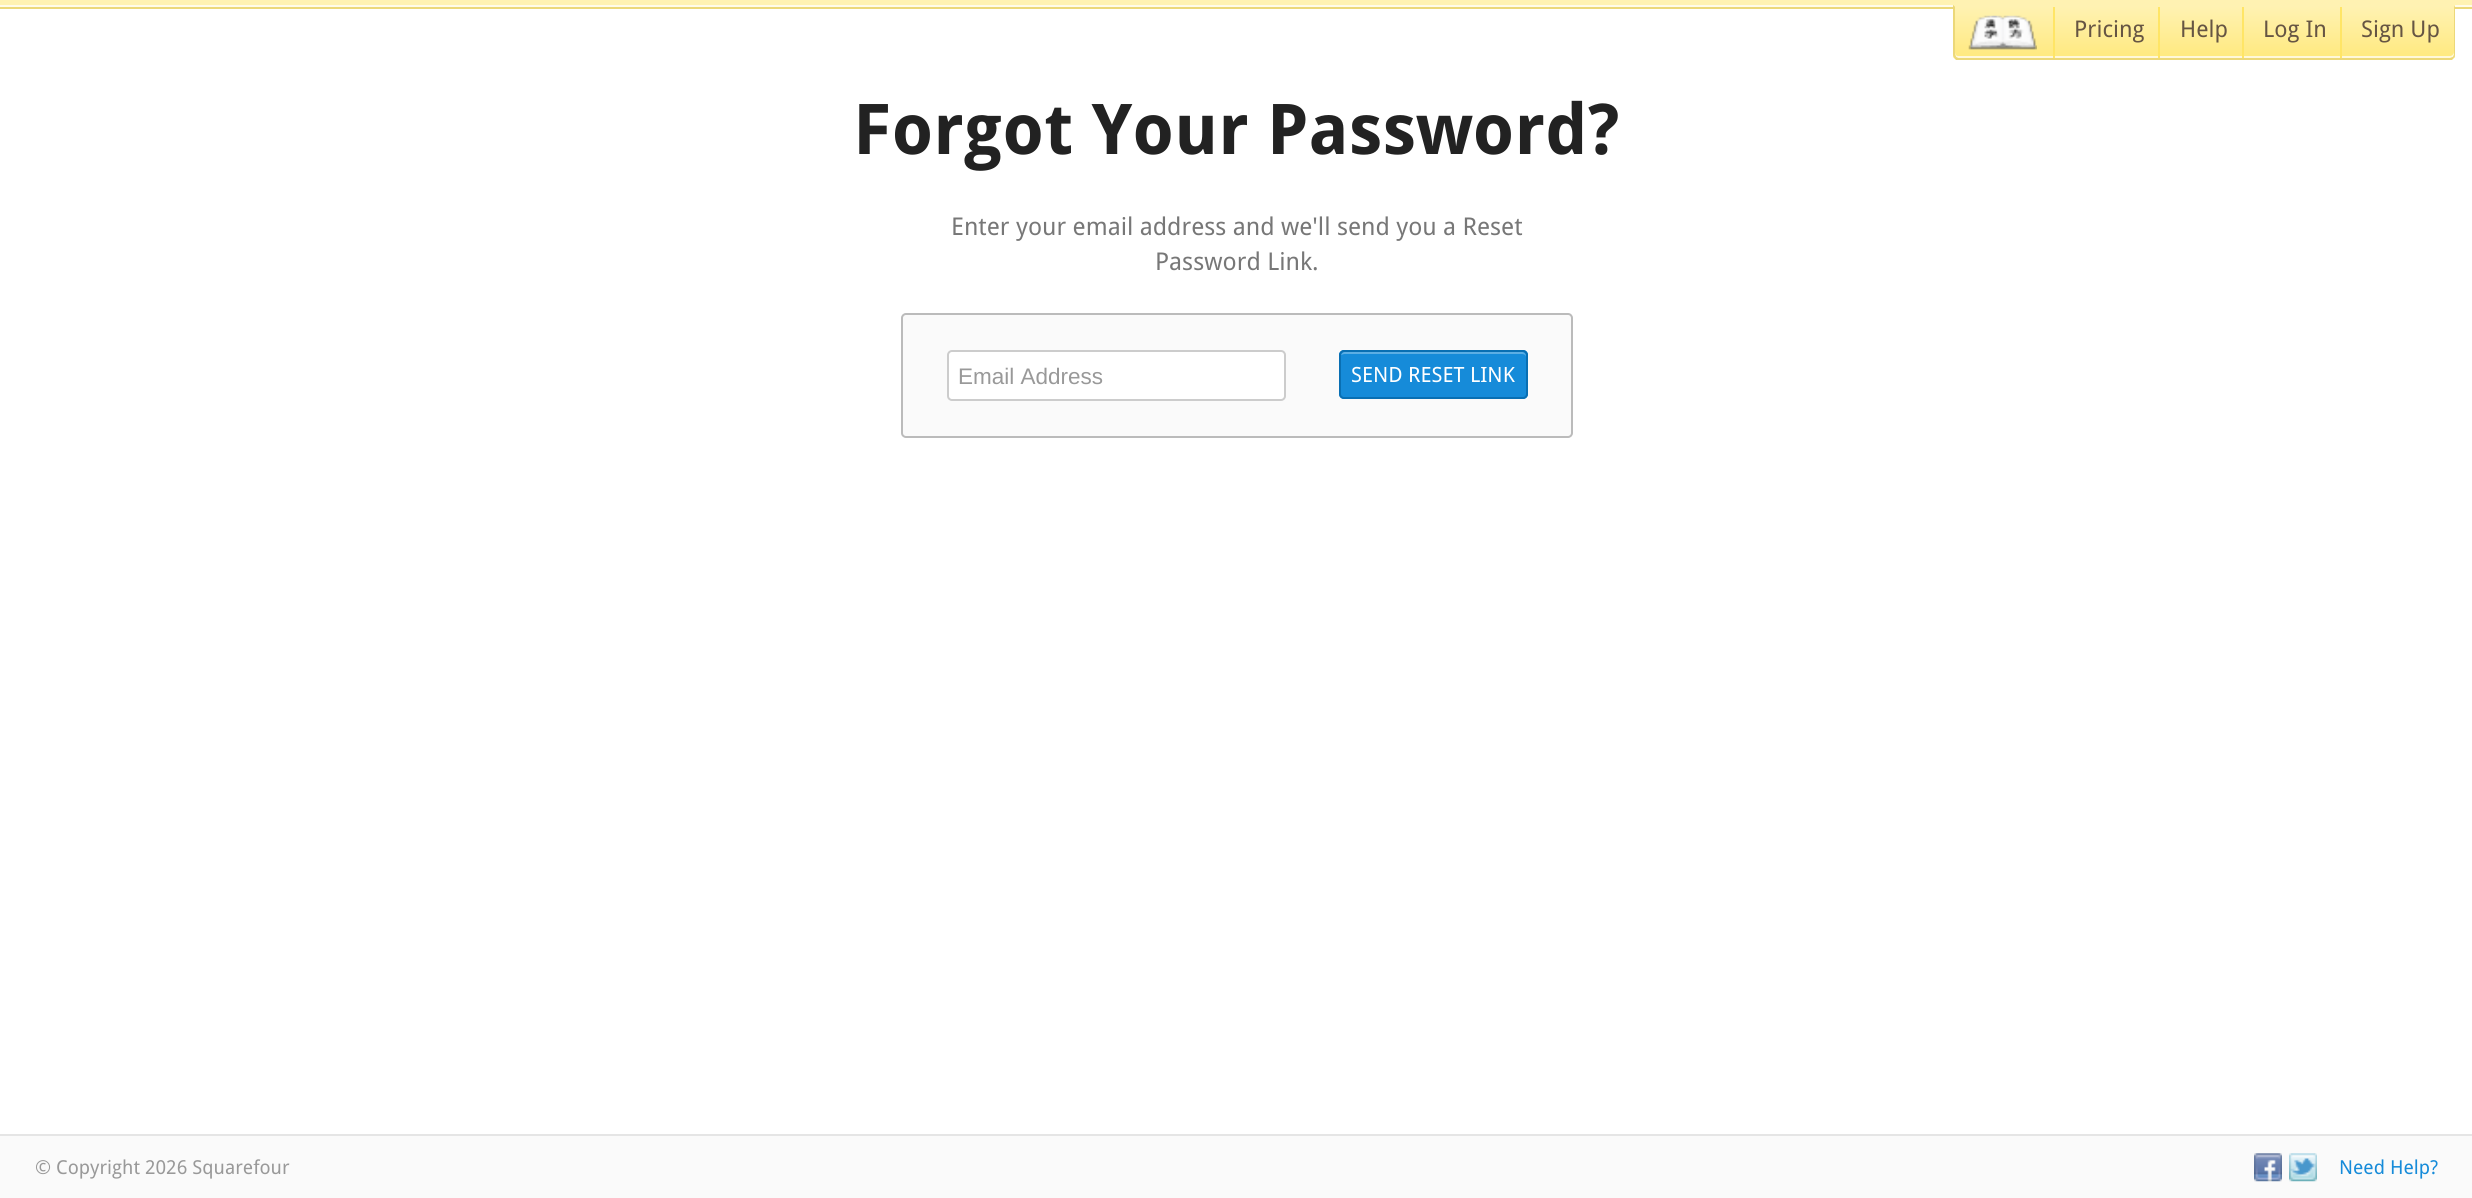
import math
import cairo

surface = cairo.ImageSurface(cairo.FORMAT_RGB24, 2472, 1198)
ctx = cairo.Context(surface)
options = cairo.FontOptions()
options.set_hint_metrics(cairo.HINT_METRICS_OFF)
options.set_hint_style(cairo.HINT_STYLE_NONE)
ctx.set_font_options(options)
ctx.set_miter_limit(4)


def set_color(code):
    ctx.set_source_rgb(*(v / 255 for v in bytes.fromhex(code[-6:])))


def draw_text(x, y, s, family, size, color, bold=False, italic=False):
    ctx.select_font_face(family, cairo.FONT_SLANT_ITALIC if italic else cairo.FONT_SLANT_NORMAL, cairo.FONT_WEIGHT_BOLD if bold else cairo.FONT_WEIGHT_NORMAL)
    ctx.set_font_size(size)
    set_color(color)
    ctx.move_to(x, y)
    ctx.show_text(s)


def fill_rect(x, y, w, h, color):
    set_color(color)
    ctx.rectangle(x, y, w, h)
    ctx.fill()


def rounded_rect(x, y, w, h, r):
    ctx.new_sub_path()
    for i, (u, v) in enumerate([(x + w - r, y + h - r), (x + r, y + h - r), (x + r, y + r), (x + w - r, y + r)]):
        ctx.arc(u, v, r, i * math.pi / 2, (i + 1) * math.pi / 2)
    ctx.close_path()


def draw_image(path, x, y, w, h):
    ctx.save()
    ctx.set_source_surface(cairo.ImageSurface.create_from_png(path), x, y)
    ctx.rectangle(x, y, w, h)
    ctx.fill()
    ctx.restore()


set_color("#ffffff")
ctx.paint()
fill_rect(0, 0, 2472, 5, "#fff2b2")
fill_rect(0, 5, 2472, 2, "#fffbe8")
fill_rect(0, 7, 2472, 2, "#ecd879")
gradient = cairo.LinearGradient(1955, -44, 1955, 7)
gradient.add_color_stop_rgba(0, 1, 0.949, 0.698, 1)
gradient.add_color_stop_rgba(1, 1, 0.914, 0.498, 1)
ctx.set_source(gradient)
ctx.rectangle(1953, 5, 502, 2)
ctx.fill()
ctx.save()
ctx.new_path()
ctx.move_to(1953, 5)
ctx.line_to(2455, 5)
ctx.line_to(2455, 55)
ctx.curve_to(2455, 58, 2453, 60, 2450, 60)
ctx.line_to(1958, 60)
ctx.curve_to(1955, 60, 1953, 58, 1953, 55)
ctx.close_path()
ctx.clip()
gradient = cairo.LinearGradient(1955, 7, 1955, 58)
gradient.add_color_stop_rgba(0, 1, 0.949, 0.698, 1)
gradient.add_color_stop_rgba(1, 1, 0.914, 0.498, 1)
ctx.set_source(gradient)
ctx.rectangle(1953, 7, 502, 51)
ctx.fill()
ctx.restore()
ctx.set_source_rgba(1, 1, 1, 0.7)
ctx.new_path()
ctx.move_to(1955, 52)
ctx.curve_to(1955, 55, 1955, 58, 1959, 58)
ctx.line_to(2450, 58)
ctx.curve_to(2454, 58, 2454, 55, 2454, 52)
ctx.curve_to(2454, 54, 2452, 56, 2450, 56)
ctx.line_to(1958, 56)
ctx.curve_to(1956, 56, 1955, 54, 1955, 52)
ctx.close_path()
ctx.fill()
set_color("#fff2b2")
ctx.new_path()
ctx.move_to(1955, 7)
ctx.line_to(1953, 5)
ctx.line_to(2455, 5)
ctx.line_to(2454, 7)
ctx.close_path()
ctx.fill()
set_color("#ecd879")
ctx.new_path()
ctx.move_to(2455, 6)
ctx.line_to(2455, 54)
ctx.curve_to(2455, 55, 2455, 57, 2454, 58)
ctx.line_to(2453, 57)
ctx.line_to(2454, 55)
ctx.line_to(2454, 7)
ctx.close_path()
ctx.fill()
ctx.new_path()
ctx.move_to(1956, 60)
ctx.line_to(1954, 58)
ctx.line_to(1956, 57)
ctx.line_to(1958, 58)
ctx.line_to(2450, 58)
ctx.line_to(2453, 57)
ctx.line_to(2454, 58)
ctx.line_to(2452, 60)
ctx.close_path()
ctx.fill()
ctx.new_path()
ctx.move_to(1953, 5)
ctx.line_to(1953, 54)
ctx.curve_to(1953, 56, 1954, 57, 1954, 58)
ctx.line_to(1956, 57)
ctx.line_to(1955, 54)
ctx.line_to(1955, 7)
ctx.close_path()
ctx.fill()
fill_rect(2053, 7, 2, 51, "#ffe566")
draw_image("assets/img1.png", 1968, 15, 69, 35)
fill_rect(2158, 7, 2, 51, "#ffe566")
draw_text(2074, 37, "Pricing", "Droid Sans", 23, "#665543")
fill_rect(2242, 7, 2, 51, "#ffe566")
draw_text(2180, 37, "Help", "Droid Sans", 23, "#665543")
fill_rect(2340, 7, 2, 51, "#ffe566")
draw_text(2263, 37, "Log In", "Droid Sans", 23, "#665543")
draw_text(2361, 37, "Sign Up", "Droid Sans", 23, "#665543")
draw_text(853, 154, "Forgot Your Password?", "Droid Sans", 70, "#222222", bold=True)
draw_text(951, 235, "Enter your email address and we'll send you a Reset", "Droid Sans", 24.5, "#777777")
draw_text(1155, 270, "Password Link.", "Droid Sans", 24.5, "#777777")
set_color("#fafafa")
rounded_rect(902, 314, 670, 123, 4)
ctx.fill_preserve()
set_color("#bbbbbb")
ctx.stroke()
set_color("#ffffff")
rounded_rect(948, 351, 337, 49, 4)
ctx.fill_preserve()
set_color("#cccccc")
ctx.stroke()
draw_text(958, 384, "Email Address", "Liberation Sans", 22.5, "#999999")
set_color("#168bd9")
rounded_rect(1339, 350, 189, 49, 5)
ctx.fill()
set_color("#5caee4")
ctx.new_path()
ctx.move_to(1344, 354)
ctx.line_to(1522, 354)
ctx.curve_to(1524, 354, 1526, 355, 1526, 357)
ctx.line_to(1526, 356)
ctx.curve_to(1526, 354, 1524, 352, 1522, 352)
ctx.line_to(1345, 352)
ctx.curve_to(1343, 352, 1342, 353, 1341, 355)
ctx.close_path()
ctx.fill()
rounded_rect(1340, 351, 187, 47, 4)
set_color("#096fb3")
ctx.stroke()
draw_text(1351, 382, "SEND RESET LINK", "Droid Sans", 21, "#ffffff")
fill_rect(0, 1136, 2472, 62, "#fafafa")
fill_rect(0, 1134, 2472, 2, "#e5e5e5")
draw_text(35, 1174, "© Copyright 2026 Squarefour", "Droid Sans", 19.25, "#999999")
draw_image("assets/img2.png", 2254, 1153, 28, 29)
draw_image("assets/img3.png", 2289, 1153, 28, 29)
draw_text(2339, 1174, "Need Help?", "Droid Sans", 19.25, "#168bd9")
surface.write_to_png("output.png")
